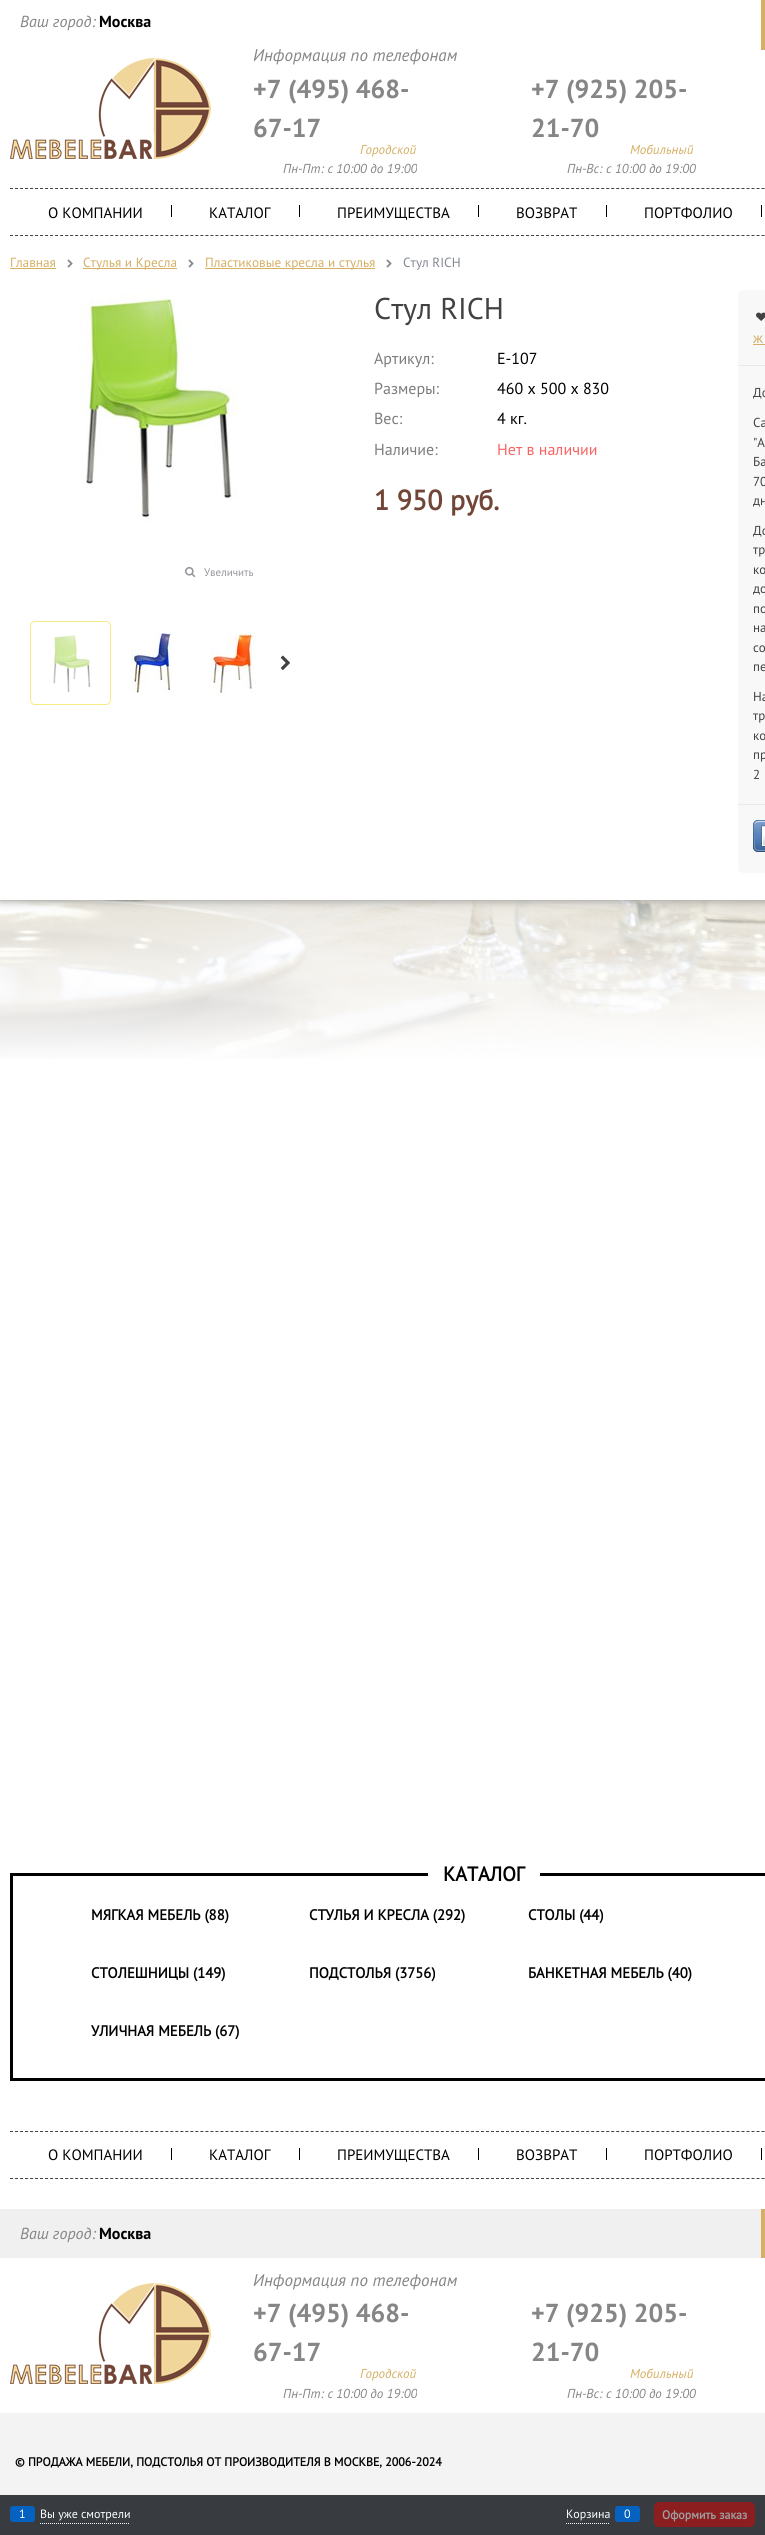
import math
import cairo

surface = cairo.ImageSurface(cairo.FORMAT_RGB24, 765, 2535)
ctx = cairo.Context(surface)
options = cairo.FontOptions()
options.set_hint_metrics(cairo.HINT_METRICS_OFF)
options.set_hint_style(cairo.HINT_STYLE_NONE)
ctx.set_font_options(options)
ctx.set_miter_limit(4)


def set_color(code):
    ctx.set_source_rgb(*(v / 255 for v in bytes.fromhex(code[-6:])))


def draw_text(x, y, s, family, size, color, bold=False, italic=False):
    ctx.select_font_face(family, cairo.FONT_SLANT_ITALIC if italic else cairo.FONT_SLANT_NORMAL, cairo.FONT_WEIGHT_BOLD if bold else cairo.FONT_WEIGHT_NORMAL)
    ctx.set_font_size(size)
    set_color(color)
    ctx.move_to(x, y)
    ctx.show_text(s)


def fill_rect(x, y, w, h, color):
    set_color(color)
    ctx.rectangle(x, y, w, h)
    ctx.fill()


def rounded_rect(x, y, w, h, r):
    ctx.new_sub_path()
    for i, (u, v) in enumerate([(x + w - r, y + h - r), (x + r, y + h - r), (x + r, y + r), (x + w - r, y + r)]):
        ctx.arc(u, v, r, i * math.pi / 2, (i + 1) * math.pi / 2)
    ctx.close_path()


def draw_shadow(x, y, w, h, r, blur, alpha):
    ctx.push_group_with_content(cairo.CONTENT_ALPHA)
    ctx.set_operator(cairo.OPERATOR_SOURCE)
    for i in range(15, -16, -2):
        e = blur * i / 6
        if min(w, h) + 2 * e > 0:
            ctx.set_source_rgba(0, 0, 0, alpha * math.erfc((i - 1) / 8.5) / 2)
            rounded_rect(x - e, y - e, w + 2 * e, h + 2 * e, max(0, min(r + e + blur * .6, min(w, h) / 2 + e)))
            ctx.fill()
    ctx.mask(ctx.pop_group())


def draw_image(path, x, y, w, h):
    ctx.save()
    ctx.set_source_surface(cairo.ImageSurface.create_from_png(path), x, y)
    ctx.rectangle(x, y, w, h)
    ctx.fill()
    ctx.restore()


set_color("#ffffff")
ctx.paint()
draw_image("assets/img11.png", 0, 900, 765, 159)
set_color("#8c8c8c")
draw_shadow(0, 0, 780, 900, 0, 5, 1)
fill_rect(0, 0, 765, 900, "#ffffff")
draw_text(20, 27, "Ваш город:", "PT Sans", 16, "#868686", italic=True)
draw_text(99, 27, "Москва", "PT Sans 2", 16, "#000000", bold=True)
fill_rect(761, 0, 4, 50, "#d5af64")
draw_image("assets/img1.png", 10, 57, 201, 102)
draw_text(253, 61, "Информация по телефонам", "PT Sans", 17, "#868686", italic=True)
draw_text(253, 98, "+7 (495) 468-", "PT Sans 2", 26, "#868686", bold=True)
draw_text(253, 137, "67-17", "PT Sans 2", 26, "#868686", bold=True)
draw_text(360, 154, "Городской", "PT Sans", 13, "#d5af64", italic=True)
draw_text(283, 173, "Пн-Пт: с 10:00 до 19:00", "PT Sans", 13, "#868686", italic=True)
draw_text(531, 98, "+7 (925) 205-", "PT Sans 2", 26, "#868686", bold=True)
draw_text(531, 137, "21-70", "PT Sans 2", 26, "#868686", bold=True)
draw_text(630, 154, "Мобильный", "PT Sans", 13, "#d5af64", italic=True)
draw_text(567, 173, "Пн-Вс: с 10:00 до 19:00", "PT Sans", 13, "#868686", italic=True)
ctx.new_path()
ctx.move_to(10, 188.5)
ctx.line_to(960, 188.5)
set_color("#434142")
ctx.set_line_width(1)
ctx.set_dash([3, 2.01])
ctx.stroke()
ctx.new_path()
ctx.move_to(10, 235.5)
ctx.line_to(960, 235.5)
ctx.stroke()
draw_text(48, 218, "О КОМПАНИИ", "PT Sans", 15, "#000000")
fill_rect(171, 205, 1, 12, "#000000")
draw_text(209, 218, "КАТАЛОГ", "PT Sans", 15, "#000000")
fill_rect(299, 205, 1, 12, "#000000")
draw_text(337, 218, "ПРЕИМУЩЕСТВА", "PT Sans", 15, "#000000")
fill_rect(478, 205, 1, 12, "#000000")
draw_text(516, 218, "ВОЗВРАТ", "PT Sans", 15, "#000000")
fill_rect(606, 205, 1, 12, "#000000")
draw_text(644, 218, "ПОРТФОЛИО", "PT Sans", 15, "#000000")
fill_rect(761, 205, 1, 12, "#000000")
draw_text(10, 267, "Главная", "PT Sans", 13.3, "#d5af64")
fill_rect(10, 268, 46, 1, "#d5af64")
draw_image("assets/img2.png", 67, 259, 6, 9)
fill_rect(83, 268, 94, 1, "#d5af64")
draw_text(83, 267, "Стулья и Кресла", "PT Sans", 13.3, "#d5af64")
draw_image("assets/img2.png", 188, 259, 6, 9)
fill_rect(205, 268, 170, 1, "#d5af64")
draw_text(205, 267, "Пластиковые кресла и стулья", "PT Sans", 13.3, "#d5af64")
draw_image("assets/img2.png", 386, 259, 6, 9)
draw_text(403, 267, "Стул RICH", "PT Sans", 13.3, "#848992")
draw_text(374, 319, "Стул RICH", "PT Sans", 30, "#434142")
draw_text(374, 364, "Артикул:", "PT Sans", 16, "#7d7d7d")
draw_text(497, 364, "E-107", "PT Sans", 16, "#000000")
draw_text(374, 394, "Размеры:", "PT Sans", 16, "#7d7d7d")
draw_text(497, 394, "460 x 500 x 830", "PT Sans", 16, "#000000")
draw_text(374, 424, "Вес:", "PT Sans", 16, "#7d7d7d")
draw_text(497, 424, "4 кг.", "PT Sans", 16, "#000000")
draw_text(374, 455, "Наличие:", "PT Sans", 16, "#7d7d7d")
draw_text(497, 455, "Нет в наличии", "PT Sans", 16, "#fb6363")
draw_text(374, 510, "1 950 руб.", "PT Sans", 28, "#724637", bold=True)
draw_image("assets/img3.png", 78, 293, 160, 229)
draw_image("assets/img4.png", 185, 566, 11, 12)
draw_text(204, 576, "Увеличить", "PT Sans", 11, "#94969b")
rounded_rect(30.5, 621.5, 80, 83, 4.5)
set_color("#f7eb83")
ctx.set_dash([])
ctx.stroke()
draw_image("assets/img5.png", 53, 635, 38, 57)
draw_image("assets/img6.png", 131, 633, 41, 60)
draw_image("assets/img7.png", 211, 633, 45, 60)
draw_image("assets/img8.png", 280, 655, 10, 15)
set_color("#f8f8f8")
rounded_rect(738, 290, 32, 583, 5)
ctx.fill()
fill_rect(738, 365, 27, 1, "#e9e9e9")
draw_image("assets/img9.png", 756, 312, 9, 9)
draw_text(753, 343, "ж", "PT Sans", 15, "#d5af64")
fill_rect(753, 344, 12, 1, "#d5af64")
fill_rect(738, 804, 27, 1, "#e9e9e9")
draw_text(753, 397, "До", "PT Sans", 13, "#434142")
draw_text(753, 427, "Са", "PT Sans", 13, "#434142")
draw_text(753, 447, "\"А", "PT Sans", 13, "#434142")
draw_text(753, 466, "Ба", "PT Sans", 13, "#434142")
draw_text(753, 486, "70", "PT Sans", 13, "#434142")
ctx.save()
ctx.rectangle(753, 408, 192, 381)
ctx.clip()
draw_text(753, 505, "дн", "PT Sans", 13, "#434142")
draw_text(753, 535, "До", "PT Sans", 13, "#434142")
ctx.restore()
draw_text(753, 554, "тр", "PT Sans", 13, "#434142")
draw_text(753, 574, "ко", "PT Sans", 13, "#434142")
ctx.save()
ctx.rectangle(753, 408, 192, 381)
ctx.clip()
draw_text(753, 593, "до", "PT Sans", 13, "#434142")
ctx.restore()
draw_text(753, 613, "по", "PT Sans", 13, "#434142")
draw_text(753, 632, "на", "PT Sans", 13, "#434142")
draw_text(753, 652, "со", "PT Sans", 13, "#434142")
draw_text(753, 671, "пе", "PT Sans", 13, "#434142")
draw_text(753, 701, "На", "PT Sans", 13, "#434142")
draw_text(753, 720, "тр", "PT Sans", 13, "#434142")
draw_text(753, 740, "ко", "PT Sans", 13, "#434142")
draw_text(753, 759, "пр", "PT Sans", 13, "#434142")
draw_text(753, 779, "2", "PT Sans", 13, "#434142")
draw_image("assets/img10.png", 753, 820, 12, 32)
ctx.rectangle(11.5, 1874.5, 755, 205)
set_color("#000000")
ctx.set_line_width(3)
ctx.stroke()
fill_rect(428, 1873, 112, 3, "#ffffff")
draw_text(443, 1881, "КАТАЛОГ", "PT Sans", 20, "#000000", bold=True)
draw_text(91, 1920, "МЯГКАЯ МЕБЕЛЬ (88)", "PT Sans", 14.75, "#000000", bold=True)
draw_text(309, 1920, "СТУЛЬЯ И КРЕСЛА (292)", "PT Sans", 14.75, "#000000", bold=True)
draw_text(528, 1920, "СТОЛЫ (44)", "PT Sans", 14.75, "#000000", bold=True)
draw_text(91, 1978, "СТОЛЕШНИЦЫ (149)", "PT Sans", 14.75, "#000000", bold=True)
draw_text(309, 1978, "ПОДСТОЛЬЯ (3756)", "PT Sans", 14.75, "#000000", bold=True)
draw_text(528, 1978, "БАНКЕТНАЯ МЕБЕЛЬ (40)", "PT Sans", 14.75, "#000000", bold=True)
draw_text(91, 2036, "УЛИЧНАЯ МЕБЕЛЬ (67)", "PT Sans", 14.75, "#000000", bold=True)
ctx.new_path()
ctx.move_to(10, 2131.5)
ctx.line_to(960, 2131.5)
set_color("#434142")
ctx.set_line_width(1)
ctx.set_dash([3, 2.01])
ctx.stroke()
ctx.new_path()
ctx.move_to(10, 2178.5)
ctx.line_to(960, 2178.5)
ctx.stroke()
draw_text(48, 2160, "О КОМПАНИИ", "PT Sans", 15, "#000000")
fill_rect(171, 2148, 1, 12, "#000000")
draw_text(209, 2160, "КАТАЛОГ", "PT Sans", 15, "#000000")
fill_rect(299, 2148, 1, 12, "#000000")
draw_text(337, 2160, "ПРЕИМУЩЕСТВА", "PT Sans", 15, "#000000")
fill_rect(478, 2148, 1, 12, "#000000")
draw_text(516, 2160, "ВОЗВРАТ", "PT Sans", 15, "#000000")
fill_rect(606, 2148, 1, 12, "#000000")
draw_text(644, 2160, "ПОРТФОЛИО", "PT Sans", 15, "#000000")
fill_rect(761, 2148, 1, 12, "#000000")
fill_rect(0, 2209, 761, 49, "#f0f0f0")
draw_text(20, 2239, "Ваш город:", "PT Sans", 16, "#868686", italic=True)
draw_text(99, 2239, "Москва", "PT Sans 2", 16, "#000000", bold=True)
fill_rect(761, 2209, 4, 49, "#d5af64")
draw_image("assets/img1.png", 10, 2282, 201, 102)
draw_text(253, 2286, "Информация по телефонам", "PT Sans", 17, "#868686", italic=True)
draw_text(253, 2322, "+7 (495) 468-", "PT Sans 2", 26, "#868686", bold=True)
draw_text(253, 2361, "67-17", "PT Sans 2", 26, "#868686", bold=True)
draw_text(360, 2378, "Городской", "PT Sans", 13, "#d5af64", italic=True)
draw_text(283, 2398, "Пн-Пт: с 10:00 до 19:00", "PT Sans", 13, "#868686", italic=True)
draw_text(531, 2322, "+7 (925) 205-", "PT Sans 2", 26, "#868686", bold=True)
draw_text(531, 2361, "21-70", "PT Sans 2", 26, "#868686", bold=True)
draw_text(630, 2378, "Мобильный", "PT Sans", 13, "#d5af64", italic=True)
draw_text(567, 2398, "Пн-Вс: с 10:00 до 19:00", "PT Sans", 13, "#868686", italic=True)
fill_rect(0, 2413, 765, 82, "#f3f3f3")
draw_text(15, 2466, "© ПРОДАЖА МЕБЕЛИ, ПОДСТОЛЬЯ ОТ ПРОИЗВОДИТЕЛЯ В МОСКВЕ, 2006-2024", "PT Sans", 12, "#000000", bold=True)
fill_rect(0, 2495, 765, 40, "#383c40")
ctx.new_path()
ctx.move_to(40, 2523.5)
ctx.line_to(130, 2523.5)
set_color("#ffffff")
ctx.set_dash([1, 1])
ctx.stroke()
set_color("#0662c1")
rounded_rect(10, 2506, 25, 16, 3)
ctx.fill()
draw_text(19, 2518, "1", "PT Sans", 12, "#ffffff")
draw_text(40, 2518, "Вы уже смотрели", "PT Sans", 12, "#ffffff")
ctx.new_path()
ctx.move_to(566, 2523.5)
ctx.line_to(610, 2523.5)
ctx.stroke()
draw_text(566, 2518, "Корзина", "PT Sans", 12, "#ffffff")
set_color("#0662c1")
rounded_rect(615, 2506, 25, 16, 3)
ctx.fill()
draw_text(624, 2518, "0", "PT Sans", 12, "#ffffff")
set_color("#8d1e20")
rounded_rect(654, 2502, 101, 25, 5)
ctx.fill()
draw_text(662, 2519, "Оформить заказ", "PT Sans", 12, "#9c9ea0", bold=True)
surface.write_to_png("output.png")
